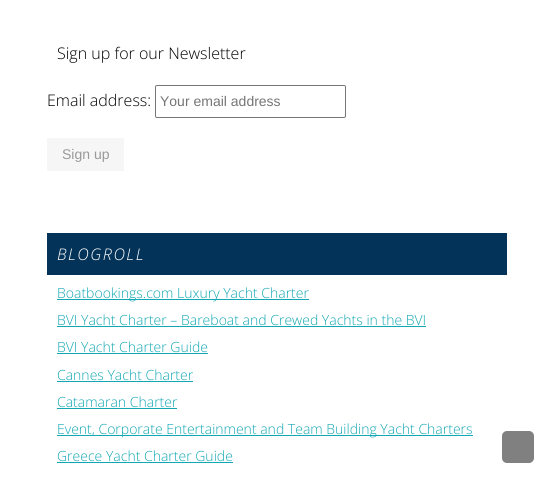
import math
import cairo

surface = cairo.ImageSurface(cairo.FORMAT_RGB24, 554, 483)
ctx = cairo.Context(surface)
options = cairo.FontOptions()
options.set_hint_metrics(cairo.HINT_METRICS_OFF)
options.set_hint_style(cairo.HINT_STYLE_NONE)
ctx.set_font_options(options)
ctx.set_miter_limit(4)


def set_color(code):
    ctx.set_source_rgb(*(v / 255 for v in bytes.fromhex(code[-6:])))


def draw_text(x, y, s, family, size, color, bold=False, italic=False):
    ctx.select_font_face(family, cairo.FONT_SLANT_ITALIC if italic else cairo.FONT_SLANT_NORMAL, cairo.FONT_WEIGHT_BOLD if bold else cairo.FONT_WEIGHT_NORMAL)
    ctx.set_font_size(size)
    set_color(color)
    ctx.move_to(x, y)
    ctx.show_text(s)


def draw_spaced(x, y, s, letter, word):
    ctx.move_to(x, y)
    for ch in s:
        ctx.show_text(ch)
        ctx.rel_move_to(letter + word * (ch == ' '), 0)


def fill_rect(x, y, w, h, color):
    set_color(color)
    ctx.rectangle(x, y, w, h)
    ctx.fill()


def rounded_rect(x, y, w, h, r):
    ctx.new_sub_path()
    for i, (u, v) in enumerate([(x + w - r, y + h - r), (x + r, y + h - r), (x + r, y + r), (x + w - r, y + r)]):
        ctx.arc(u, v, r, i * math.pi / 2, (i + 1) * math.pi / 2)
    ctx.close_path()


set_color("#ffffff")
ctx.paint()
draw_text(57, 59, "Sign up for our Newsletter", "Open Sans Light", 16, "#000000")
draw_text(47, 106, "Email address:", "Open Sans Light", 16, "#000000")
rounded_rect(155.5, 85.5, 190, 32, 1.5)
set_color("#767676")
ctx.set_line_width(1)
ctx.stroke()
draw_text(160, 106, "Your email address", "Liberation Sans", 14, "#757575")
fill_rect(47, 138, 77, 33, "#f6f6f6")
draw_text(62, 159, "Sign up", "Liberation Sans", 14, "#999999")
fill_rect(47, 233, 460, 42, "#033359")
ctx.select_font_face("Open Sans Light", cairo.FONT_SLANT_ITALIC)
ctx.set_font_size(16)
set_color("#ffffff")
draw_spaced(57, 260, "BLOGROLL", 1.5, 0)
fill_rect(57, 299, 252, 1, "#13a7b3")
draw_text(57, 298, "Boatbookings.com Luxury Yacht Charter", "Open Sans Light", 14, "#13a7b3")
draw_text(57, 325, "BVI Yacht Charter – Bareboat and Crewed Yachts in the BVI", "Open Sans Light", 14, "#13a7b3")
fill_rect(57, 326, 369, 1, "#13a7b3")
draw_text(57, 352, "BVI Yacht Charter Guide", "Open Sans Light", 14, "#13a7b3")
fill_rect(57, 353, 151, 1, "#13a7b3")
draw_text(57, 380, "Cannes Yacht Charter", "Open Sans Light", 14, "#13a7b3")
fill_rect(57, 381, 136, 1, "#13a7b3")
draw_text(57, 407, "Catamaran Charter", "Open Sans Light", 14, "#13a7b3")
fill_rect(57, 408, 120, 1, "#13a7b3")
fill_rect(57, 435, 416, 1, "#13a7b3")
draw_text(57, 434, "Event, Corporate Entertainment and Team Building Yacht Charters", "Open Sans Light", 14, "#13a7b3")
draw_text(57, 461, "Greece Yacht Charter Guide", "Open Sans Light", 14, "#13a7b3")
fill_rect(57, 462, 176, 1, "#13a7b3")
set_color("#808080")
rounded_rect(502, 431, 32, 32, 5)
ctx.fill()
surface.write_to_png("output.png")
